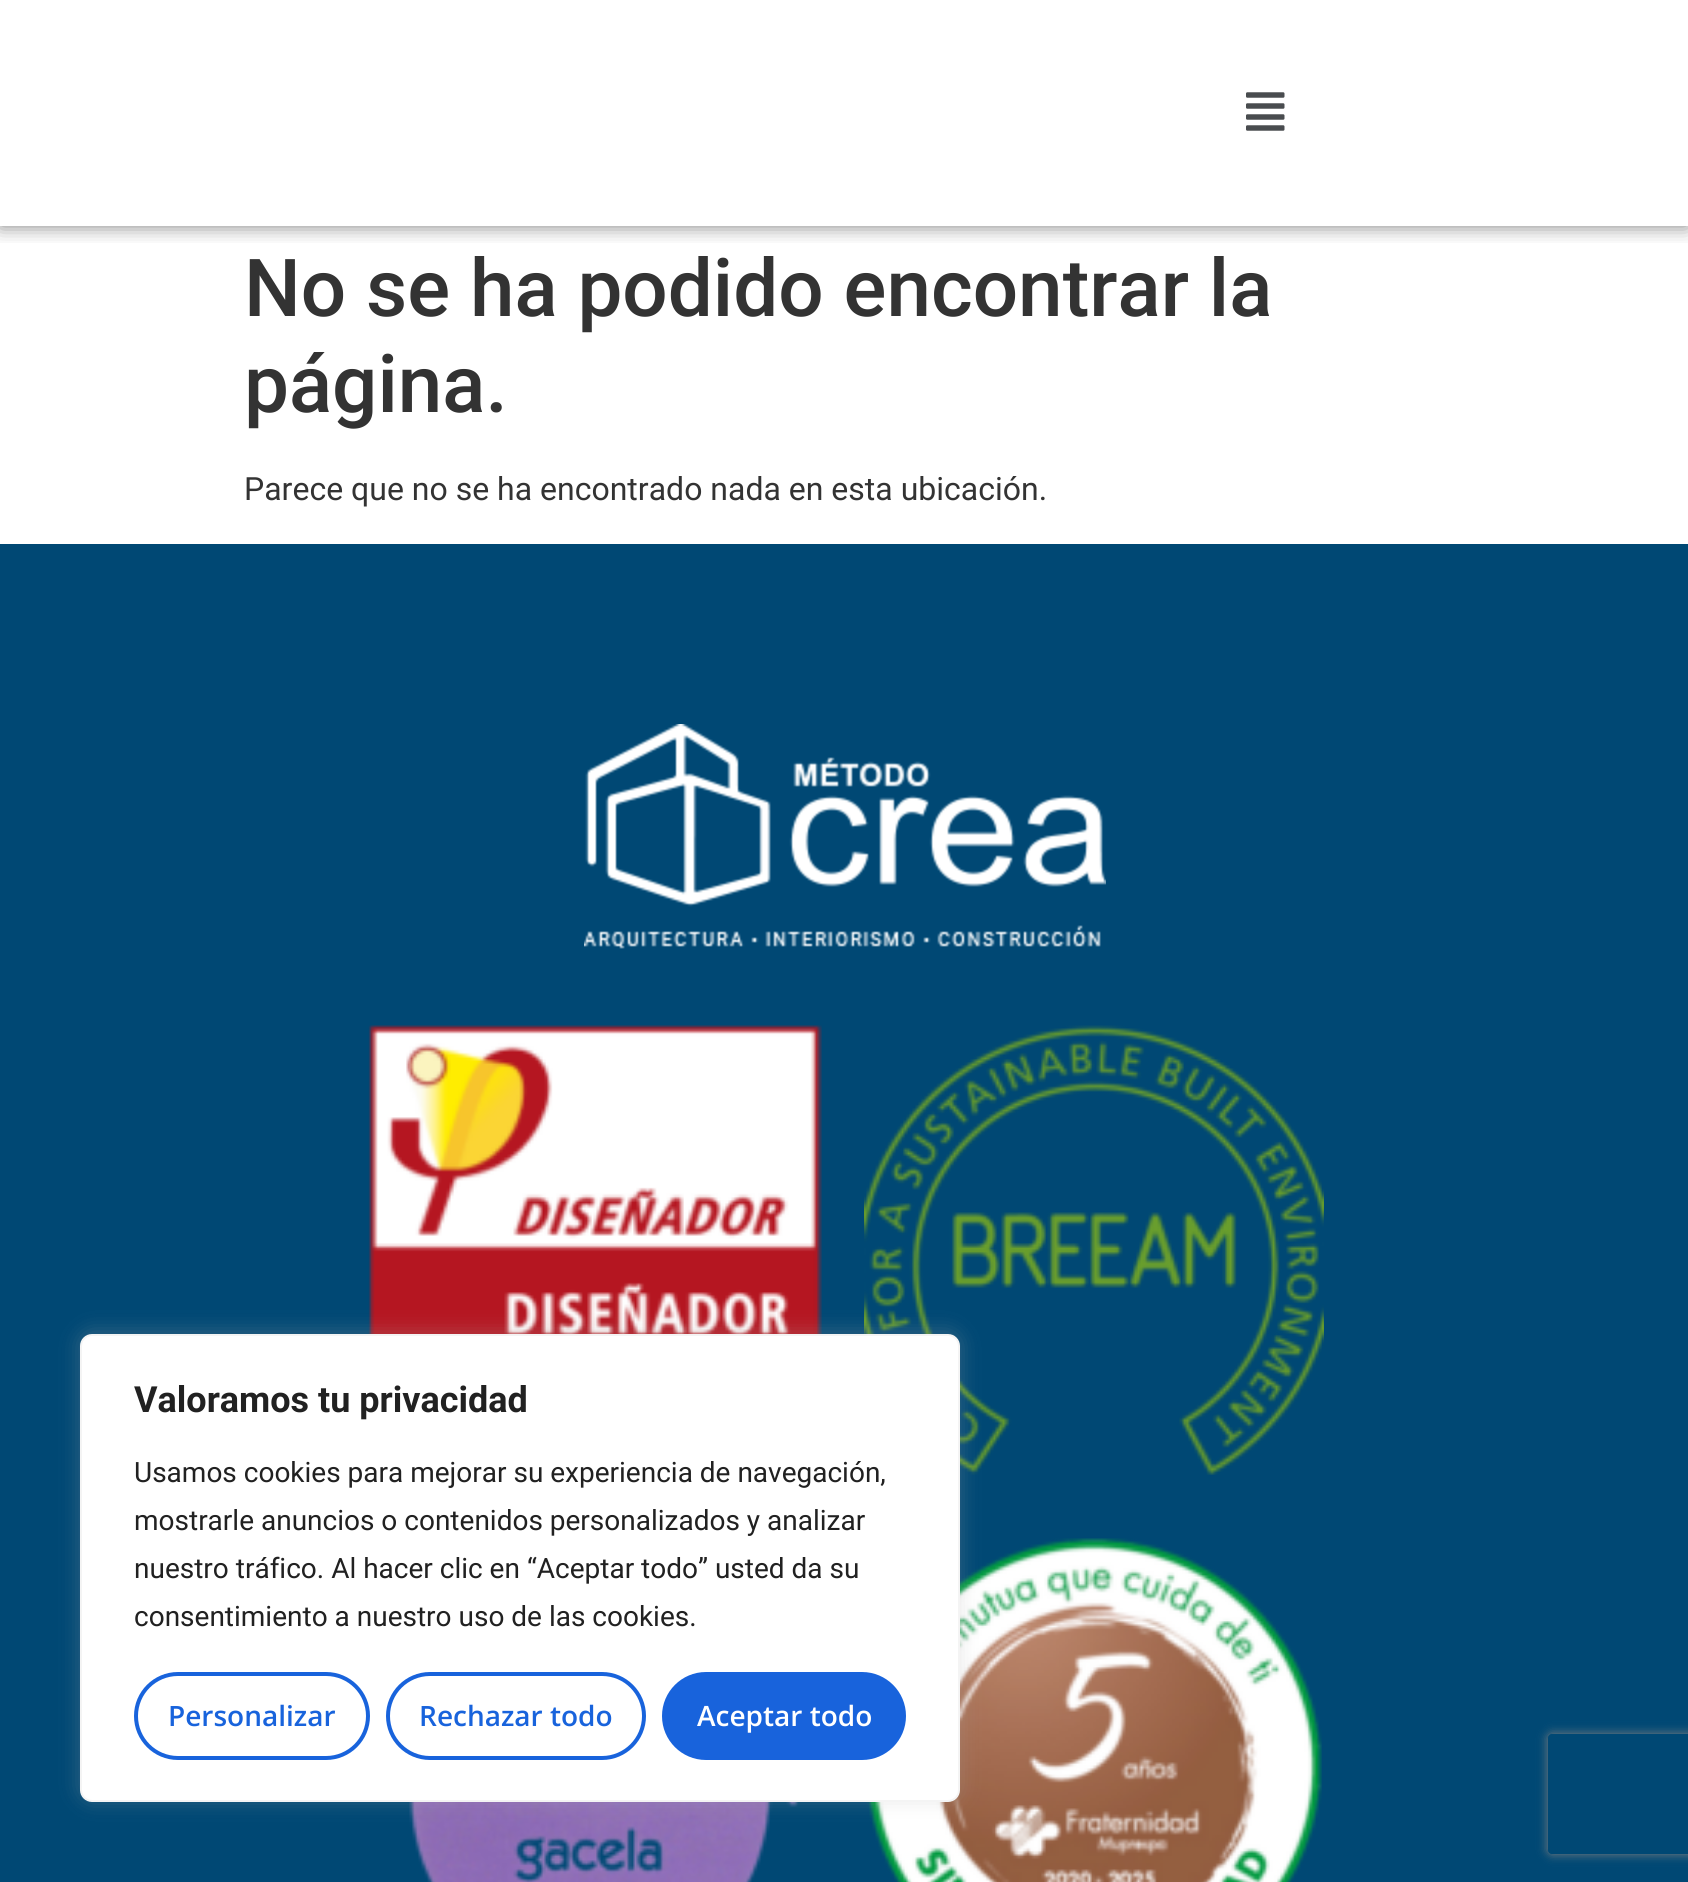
import math
import cairo

surface = cairo.ImageSurface(cairo.FORMAT_RGB24, 1688, 1882)
ctx = cairo.Context(surface)
options = cairo.FontOptions()
options.set_hint_metrics(cairo.HINT_METRICS_OFF)
options.set_hint_style(cairo.HINT_STYLE_NONE)
ctx.set_font_options(options)
ctx.set_miter_limit(4)


def set_color(code):
    ctx.set_source_rgb(*(v / 255 for v in bytes.fromhex(code[-6:])))


def draw_text(x, y, s, family, size, color, bold=False, italic=False):
    ctx.select_font_face(family, cairo.FONT_SLANT_ITALIC if italic else cairo.FONT_SLANT_NORMAL, cairo.FONT_WEIGHT_BOLD if bold else cairo.FONT_WEIGHT_NORMAL)
    ctx.set_font_size(size)
    set_color(color)
    ctx.move_to(x, y)
    ctx.show_text(s)


def fill_rect(x, y, w, h, color):
    set_color(color)
    ctx.rectangle(x, y, w, h)
    ctx.fill()


def rounded_rect(x, y, w, h, r):
    ctx.new_sub_path()
    for i, (u, v) in enumerate([(x + w - r, y + h - r), (x + r, y + h - r), (x + r, y + r), (x + w - r, y + r)]):
        ctx.arc(u, v, r, i * math.pi / 2, (i + 1) * math.pi / 2)
    ctx.close_path()


def draw_shadow(x, y, w, h, r, blur, alpha):
    ctx.push_group_with_content(cairo.CONTENT_ALPHA)
    ctx.set_operator(cairo.OPERATOR_SOURCE)
    for i in range(15, -16, -2):
        e = blur * i / 6
        if min(w, h) + 2 * e > 0:
            ctx.set_source_rgba(0, 0, 0, alpha * math.erfc((i - 1) / 8.5) / 2)
            rounded_rect(x - e, y - e, w + 2 * e, h + 2 * e, max(0, min(r + e + blur * .6, min(w, h) / 2 + e)))
            ctx.fill()
    ctx.mask(ctx.pop_group())


def draw_image(path, x, y, w, h):
    ctx.save()
    ctx.set_source_surface(cairo.ImageSurface.create_from_png(path), x, y)
    ctx.rectangle(x, y, w, h)
    ctx.fill()
    ctx.restore()


set_color("#ffffff")
ctx.paint()
ctx.save()
ctx.rectangle(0, 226, 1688, 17)
ctx.clip()
set_color("#000000")
draw_shadow(0, 0, 1688, 226, 0, 10, 0.5)
ctx.restore()
draw_image("assets/img1.png", 1246, 92, 39, 39)
draw_text(244, 316, "No se ha podido encontrar la", "Roboto Medium", 80, "#333333")
draw_text(244, 412, "página.", "Roboto Medium", 80, "#333333")
draw_text(244, 500, "Parece que no se ha encontrado nada en esta ubicación.", "Roboto", 32, "#333333")
fill_rect(0, 544, 1688, 1338, "#004874")
draw_image("assets/img2.png", 584, 724, 522, 225)
draw_image("assets/img3.png", 368, 1025, 454, 309)
draw_image("assets/img4.png", 864, 1025, 460, 450)
draw_image("assets/img5.png", 409, 1802, 390, 80)
draw_image("assets/img6.png", 866, 1538, 456, 344)
set_color("#acabab")
draw_shadow(80, 1332, 880, 468, 12, 10, 0.3)
set_color("#ffffff")
rounded_rect(81, 1335, 878, 466, 11)
ctx.fill_preserve()
set_color("#f4f4f4")
ctx.stroke()
draw_text(134, 1412, "Valoramos tu privacidad", "Roboto", 36, "#212121", bold=True)
draw_text(134, 1482, "Usamos cookies para mejorar su experiencia de navegación,", "Roboto", 28, "#212121")
draw_text(134, 1530, "mostrarle anuncios o contenidos personalizados y analizar", "Roboto", 28, "#212121")
draw_text(134, 1578, "nuestro tráfico. Al hacer clic en “Aceptar todo” usted da su", "Roboto", 28, "#212121")
draw_text(134, 1626, "consentimiento a nuestro uso de las cookies.", "Roboto", 28, "#212121")
rounded_rect(136, 1674, 232, 84, 42)
set_color("#1863dc")
ctx.set_line_width(4)
ctx.stroke()
draw_text(168, 1726, "Personalizar", "Open Sans SemiBold", 28, "#1863dc")
rounded_rect(388, 1674, 256, 84, 42)
ctx.stroke()
draw_text(419, 1726, "Rechazar todo", "Open Sans SemiBold", 28, "#1863dc")
rounded_rect(664, 1674, 240, 84, 42)
ctx.fill_preserve()
ctx.stroke()
draw_text(697, 1726, "Aceptar todo", "Open Sans SemiBold", 28, "#ffffff")
ctx.save()
ctx.set_fill_rule(cairo.FILL_RULE_EVEN_ODD)
ctx.new_path()
ctx.move_to(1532, 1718)
ctx.line_to(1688, 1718)
ctx.line_to(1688, 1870)
ctx.line_to(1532, 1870)
ctx.close_path()
ctx.move_to(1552, 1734)
ctx.line_to(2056, 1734)
ctx.curve_to(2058, 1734, 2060, 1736, 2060, 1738)
ctx.line_to(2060, 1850)
ctx.curve_to(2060, 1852, 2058, 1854, 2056, 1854)
ctx.line_to(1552, 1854)
ctx.curve_to(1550, 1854, 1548, 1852, 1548, 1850)
ctx.line_to(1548, 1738)
ctx.curve_to(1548, 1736, 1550, 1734, 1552, 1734)
ctx.close_path()
ctx.clip()
set_color("#808080")
draw_shadow(1548, 1734, 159, 120, 4, 5, 1)
ctx.restore()
surface.write_to_png("output.png")
